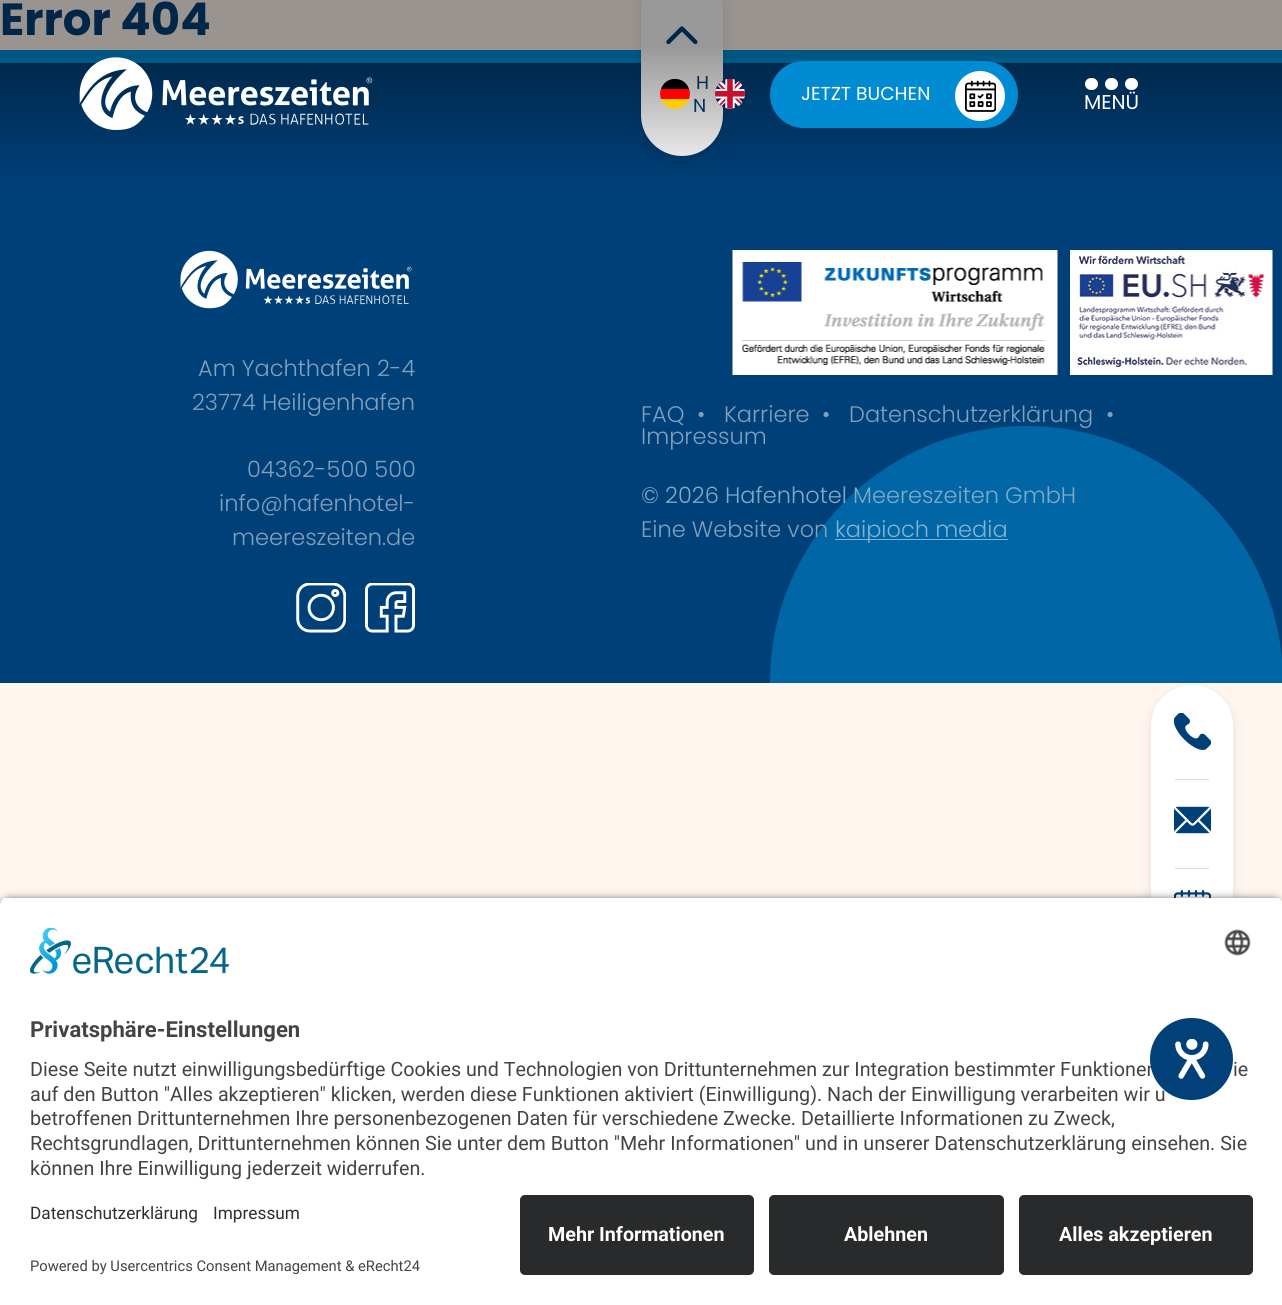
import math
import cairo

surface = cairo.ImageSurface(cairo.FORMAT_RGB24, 1282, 1305)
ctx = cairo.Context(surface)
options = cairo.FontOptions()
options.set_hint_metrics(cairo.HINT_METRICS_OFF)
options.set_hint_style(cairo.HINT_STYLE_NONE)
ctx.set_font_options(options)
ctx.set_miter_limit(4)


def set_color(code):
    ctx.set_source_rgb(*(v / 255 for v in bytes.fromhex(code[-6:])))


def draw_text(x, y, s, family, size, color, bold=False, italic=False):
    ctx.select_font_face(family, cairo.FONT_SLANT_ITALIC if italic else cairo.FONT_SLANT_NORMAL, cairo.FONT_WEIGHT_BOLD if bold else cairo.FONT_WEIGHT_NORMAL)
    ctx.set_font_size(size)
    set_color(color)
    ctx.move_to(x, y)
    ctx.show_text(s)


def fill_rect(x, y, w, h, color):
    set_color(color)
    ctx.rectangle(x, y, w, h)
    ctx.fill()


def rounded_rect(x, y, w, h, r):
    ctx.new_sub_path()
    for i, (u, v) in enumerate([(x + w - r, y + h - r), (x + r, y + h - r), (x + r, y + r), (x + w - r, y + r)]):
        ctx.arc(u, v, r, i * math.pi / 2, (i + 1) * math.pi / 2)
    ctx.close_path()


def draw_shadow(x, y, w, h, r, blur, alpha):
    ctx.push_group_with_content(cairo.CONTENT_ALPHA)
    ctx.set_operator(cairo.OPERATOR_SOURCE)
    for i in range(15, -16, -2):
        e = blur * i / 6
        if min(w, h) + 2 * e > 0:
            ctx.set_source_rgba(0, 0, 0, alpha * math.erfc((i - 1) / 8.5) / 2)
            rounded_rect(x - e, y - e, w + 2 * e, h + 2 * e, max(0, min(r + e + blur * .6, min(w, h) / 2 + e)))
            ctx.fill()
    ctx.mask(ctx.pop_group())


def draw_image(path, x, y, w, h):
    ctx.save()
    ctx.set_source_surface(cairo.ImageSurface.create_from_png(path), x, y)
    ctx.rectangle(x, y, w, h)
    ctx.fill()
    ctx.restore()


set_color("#fff6f0")
ctx.paint()
draw_text(0, 35, "Error 404", "Poppins", 45, "#004078", bold=True)
fill_rect(0, 63, 1282, 620, "#004078")
fill_rect(0, 50, 1282, 13, "#008bd2")
set_color("#000000")
draw_shadow(641, -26, 82, 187, 41, 6, 0.1)
set_color("#ffffff")
rounded_rect(641, -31, 82, 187, 41)
ctx.fill()
draw_image("assets/img1.png", 666, 26, 32, 19)
draw_text(696, 89, "H", "Poppins", 18.75, "#004078")
draw_text(693, 112, "N", "Poppins", 18.75, "#004078")
draw_image("assets/img2.png", 180, 250, 232, 59)
draw_text(198, 376, "Am Yachthafen 2-4", "Poppins Light", 22.5, "#80a0bc")
draw_text(192, 410, "23774 Heiligenhafen", "Poppins Light", 22.5, "#80a0bc")
draw_text(247, 477, "04362-500 500", "Poppins Light", 22.5, "#80a0bc")
draw_text(219, 511, "info@hafenhotel-", "Poppins Light", 22.5, "#80a0bc")
draw_text(232, 545, "meereszeiten.de", "Poppins Light", 22.5, "#80a0bc")
draw_image("assets/img3.png", 296, 583, 50, 50)
draw_image("assets/img4.png", 365, 583, 50, 50)
draw_image("assets/img5.png", 732, 250, 326, 125)
draw_image("assets/img6.png", 1070, 250, 203, 125)
draw_text(641, 422, "FAQ", "Poppins Light", 22.5, "#80a0bc")
draw_text(697, 422, "•", "Poppins Light", 22.5, "#80a0bc")
draw_text(724, 422, "Karriere", "Poppins Light", 22.5, "#80a0bc")
draw_text(822, 422, "•", "Poppins Light", 22.5, "#80a0bc")
ctx.save()
ctx.rectangle(0, 63, 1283, 620)
ctx.clip()
set_color("#0066a5")
ctx.arc(1026.5, 682.5, 256.5, 0, 2 * math.pi)
ctx.fill()
ctx.restore()
draw_text(849, 422, "Datenschutzerklärung", "Poppins Light", 22.5, "#80a0bc")
draw_text(1106, 422, "•", "Poppins Light", 22.5, "#80a0bc")
draw_text(641, 444, "Impressum", "Poppins Light", 22.5, "#80a0bc")
draw_text(641, 503, "© 2026 Hafenhotel Meereszeiten GmbH", "Poppins Light", 22.5, "#80aac7")
draw_text(641, 537, "Eine Website von", "Poppins Light", 22.5, "#80a0bc")
fill_rect(835, 539, 173, 1, "#80b3d2")
draw_text(835, 537, "kaipioch media", "Poppins Light", 22.5, "#80b3d2")
gradient = cairo.LinearGradient(641, 0, 641, 188)
gradient.add_color_stop_rgba(0.25, 0, 0, 0, 0.4)
gradient.add_color_stop_rgba(1, 0, 0, 0, 0)
ctx.set_source(gradient)
ctx.rectangle(0, 0, 1282, 180)
ctx.fill()
draw_image("assets/img7.png", 79, 57, 294, 73)
set_color("#ffcc00")
ctx.new_path()
ctx.move_to(689, 99)
ctx.curve_to(684, 112, 666, 112, 661, 99)
ctx.close_path()
ctx.fill()
set_color("#000001")
ctx.new_path()
ctx.move_to(661, 89)
ctx.curve_to(665.5, 75.5, 684.5, 75.5, 689, 89)
ctx.close_path()
ctx.fill()
set_color("#ff0000")
ctx.new_path()
ctx.move_to(661, 99)
ctx.curve_to(660, 96, 659.5, 92, 661, 89)
ctx.line_to(689, 89)
ctx.curve_to(690.5, 92, 690, 96, 689, 99)
ctx.close_path()
ctx.fill()
draw_image("assets/img8.png", 715, 79, 30, 30)
set_color("#008bd2")
rounded_rect(770, 61, 248, 67, 33.5)
ctx.fill()
draw_text(801, 100, "JETZT BUCHEN", "Poppins", 18.75, "#ffffff")
ctx.new_path()
ctx.arc(980, 96, 25, 0, 2 * math.pi)
ctx.fill()
draw_image("assets/img9.png", 965, 80, 31, 32)
rounded_rect(1085, 78, 13, 12, 6)
ctx.fill()
rounded_rect(1105, 78, 13, 12, 6)
ctx.fill()
rounded_rect(1125, 78, 13, 12, 6)
ctx.fill()
draw_text(1084, 109, "MENÜ", "Poppins", 20, "#ffffff")
set_color("#000000")
draw_shadow(1151, 690, 82, 278, 41, 6, 0.1)
set_color("#ffffff")
rounded_rect(1151, 685, 82, 278, 41)
ctx.fill()
draw_image("assets/img10.png", 1174, 713, 37, 37)
fill_rect(1175, 779, 34, 1, "#dddddd")
draw_image("assets/img11.png", 1174, 806, 37, 28)
fill_rect(1175, 868, 34, 1, "#dddddd")
draw_image("assets/img12.png", 1174, 890, 37, 8)
set_color("#000000")
draw_shadow(0, 900, 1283, 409, 10, 4.5, 0.8)
ctx.save()
ctx.new_path()
ctx.move_to(10, 896)
ctx.line_to(1273, 896)
ctx.curve_to(1278.5, 896, 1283, 900.5, 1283, 906)
ctx.line_to(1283, 1185)
ctx.line_to(0, 1185)
ctx.line_to(0, 906)
ctx.curve_to(0, 900.5, 4.5, 896, 10, 896)
ctx.close_path()
ctx.clip()
fill_rect(0, 898, 1282, 287, "#ffffff")
ctx.restore()
draw_text(30, 1076, "Diese Seite nutzt einwilligungsbedürftige Cookies und Technologien von Drittunternehmen zur Integration bestimmter Funktionen", "Roboto", 19.7, "#444444")
draw_text(30, 1101, "auf den Button \"Alles akzeptieren\" klicken, werden diese Funktionen aktiviert (Einwilligung). Nach der Einwilligung verarbeiten wir u", "Roboto", 19.7, "#444444")
set_color("#014079")
rounded_rect(1150, 1018, 83, 82, 41)
ctx.fill()
draw_image("assets/img13.png", 1175, 1039, 34, 40)
draw_image("assets/img14.png", 30, 928, 199, 46)
draw_image("assets/img15.png", 1224, 929, 27, 27)
draw_text(30, 1037, "Privatsphäre-Einstellungen", "Roboto", 22.1, "#444444", bold=True)
draw_text(1233, 1076, "ie", "Roboto", 19.7, "#444444")
draw_text(30, 1125, "betroffenen Drittunternehmen Ihre personenbezogenen Daten für verschiedene Zwecke. Detaillierte Informationen zu Zweck,", "Roboto", 19.7, "#444444")
draw_text(30, 1150, "Rechtsgrundlagen, Drittunternehmen können Sie unter dem Button \"Mehr Informationen\" und in unserer Datenschutzerklärung einsehen. Sie", "Roboto", 19.7, "#444444")
draw_text(30, 1175, "können Ihre Einwilligung jederzeit widerrufen.", "Roboto", 19.7, "#444444")
fill_rect(0, 1185, 1282, 120, "#ffffff")
draw_text(30, 1219, "Datenschutzerklärung", "Roboto", 17.25, "#303030")
draw_text(213, 1219, "Impressum", "Roboto", 17.25, "#303030")
draw_text(30, 1271, "Powered by Usercentrics Consent Management & eRecht24", "Roboto", 14.75, "#444444")
set_color("#292a2b")
rounded_rect(520, 1195, 234, 80, 5)
ctx.fill()
draw_text(548, 1241, "Mehr Informationen", "Roboto", 19.7, "#ffffff", bold=True)
set_color("#292a2b")
rounded_rect(769, 1195, 235, 80, 5)
ctx.fill()
draw_text(844, 1241, "Ablehnen", "Roboto", 19.7, "#ffffff", bold=True)
set_color("#292a2b")
rounded_rect(1019, 1195, 234, 80, 5)
ctx.fill()
draw_text(1059, 1241, "Alles akzeptieren", "Roboto", 19.7, "#ffffff", bold=True)
surface.write_to_png("output.png")
